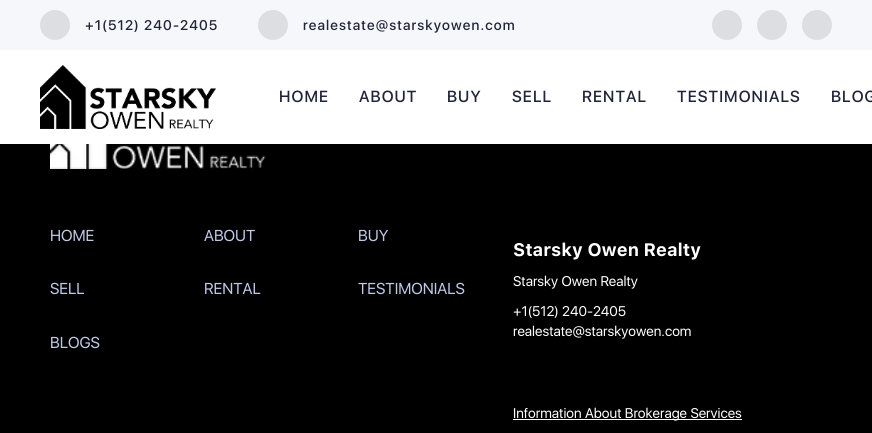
import math
import cairo

surface = cairo.ImageSurface(cairo.FORMAT_RGB24, 872, 433)
ctx = cairo.Context(surface)
options = cairo.FontOptions()
options.set_hint_metrics(cairo.HINT_METRICS_OFF)
options.set_hint_style(cairo.HINT_STYLE_NONE)
ctx.set_font_options(options)
ctx.set_miter_limit(4)


def set_color(code):
    ctx.set_source_rgb(*(v / 255 for v in bytes.fromhex(code[-6:])))


def draw_text(x, y, s, family, size, color, bold=False, italic=False):
    ctx.select_font_face(family, cairo.FONT_SLANT_ITALIC if italic else cairo.FONT_SLANT_NORMAL, cairo.FONT_WEIGHT_BOLD if bold else cairo.FONT_WEIGHT_NORMAL)
    ctx.set_font_size(size)
    set_color(color)
    ctx.move_to(x, y)
    ctx.show_text(s)


def draw_spaced(x, y, s, letter, word):
    ctx.move_to(x, y)
    for ch in s:
        ctx.show_text(ch)
        ctx.rel_move_to(letter + word * (ch == ' '), 0)


def fill_rect(x, y, w, h, color):
    set_color(color)
    ctx.rectangle(x, y, w, h)
    ctx.fill()


def draw_image(path, x, y, w, h):
    ctx.save()
    ctx.set_source_surface(cairo.ImageSurface.create_from_png(path), x, y)
    ctx.rectangle(x, y, w, h)
    ctx.fill()
    ctx.restore()


set_color("#000000")
ctx.paint()
fill_rect(0, 0, 872, 50, "#f6f7fb")
set_color("#dddee2")
ctx.arc(55, 25, 15, 0, 2 * math.pi)
ctx.fill()
ctx.select_font_face("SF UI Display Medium")
ctx.set_font_size(14)
set_color("#202437")
draw_spaced(85, 30, "+1(512) 240-2405", 1.1, 0)
set_color("#dddee2")
ctx.new_path()
ctx.arc(273, 25, 15, 0, 2 * math.pi)
ctx.fill()
set_color("#202437")
draw_spaced(303, 30, "realestate@starskyowen.com", 1.1, 0)
set_color("#dddee2")
ctx.new_path()
ctx.arc(727, 25, 15, 0, 2 * math.pi)
ctx.fill()
ctx.arc(772, 25, 15, 0, 2 * math.pi)
ctx.fill()
ctx.arc(817, 25, 15, 0, 2 * math.pi)
ctx.fill()
fill_rect(0, 50, 872, 94, "#ffffff")
draw_image("assets/img1.png", 40, 65, 177, 64)
ctx.set_font_size(16)
set_color("#202437")
draw_spaced(279, 102, "HOME", 1.1, 0)
draw_spaced(359, 102, "ABOUT", 1.1, 0)
draw_spaced(447, 102, "BUY", 1.1, 0)
draw_spaced(512, 102, "SELL", 1.1, 0)
draw_spaced(582, 102, "RENTAL", 1.1, 0)
draw_spaced(677, 102, "TESTIMONIALS", 1.1, 0)
draw_spaced(831, 102, "BLOG", 1.1, 0)
draw_image("assets/img2.png", 50, 144, 216, 25)
draw_text(50, 241, "HOME", "SF UI Display", 15.75, "#bfc9e4")
draw_text(204, 241, "ABOUT", "SF UI Display", 15.75, "#bfc9e4")
draw_text(358, 241, "BUY", "SF UI Display", 15.75, "#bfc9e4")
draw_text(50, 294, "SELL", "SF UI Display", 15.75, "#bfc9e4")
draw_text(204, 294, "RENTAL", "SF UI Display", 15.75, "#bfc9e4")
draw_text(358, 294, "TESTIMONIALS", "SF UI Display", 15.75, "#bfc9e4")
draw_text(50, 348, "BLOGS", "SF UI Display", 15.75, "#bfc9e4")
draw_text(513, 256, "Starsky Owen Realty", "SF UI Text", 18, "#ffffff", bold=True)
draw_text(513, 286, "Starsky Owen Realty", "SF UI Display", 14, "#ffffff")
draw_text(513, 316, "+1(512) 240-2405", "SF UI Display", 14, "#ffffff")
draw_text(513, 336, "realestate@starskyowen.com", "SF UI Display", 14, "#ffffff")
fill_rect(513, 419, 229, 1, "#ffffff")
draw_text(513, 418, "Information About Brokerage Services", "SF UI Display", 14, "#ffffff")
surface.write_to_png("output.png")
